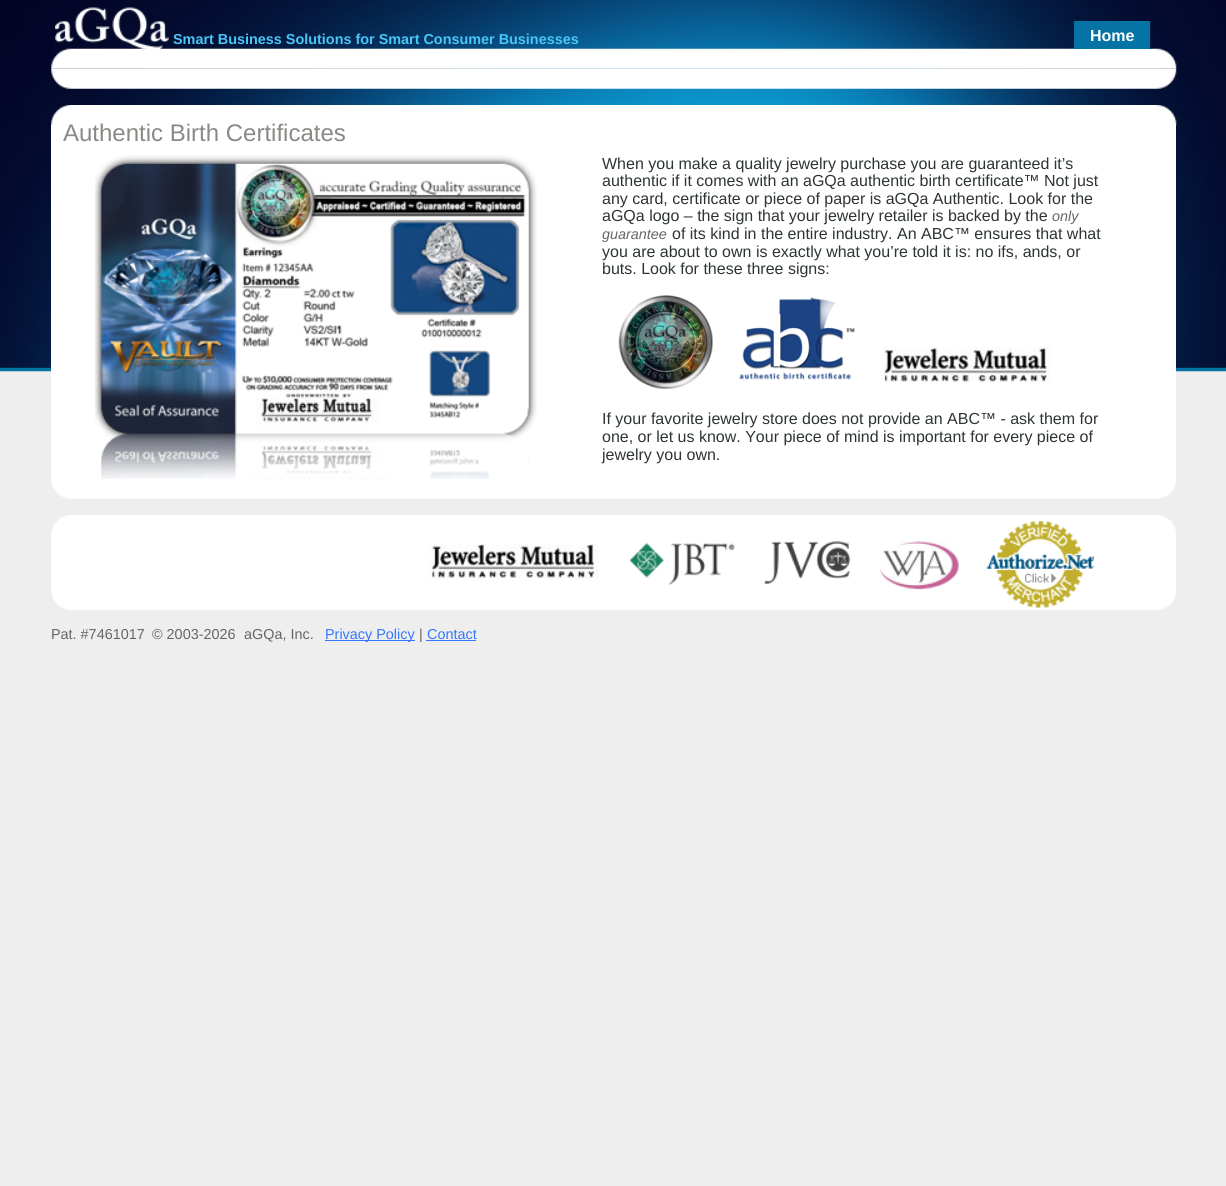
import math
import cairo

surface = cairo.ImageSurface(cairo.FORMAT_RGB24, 1226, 1186)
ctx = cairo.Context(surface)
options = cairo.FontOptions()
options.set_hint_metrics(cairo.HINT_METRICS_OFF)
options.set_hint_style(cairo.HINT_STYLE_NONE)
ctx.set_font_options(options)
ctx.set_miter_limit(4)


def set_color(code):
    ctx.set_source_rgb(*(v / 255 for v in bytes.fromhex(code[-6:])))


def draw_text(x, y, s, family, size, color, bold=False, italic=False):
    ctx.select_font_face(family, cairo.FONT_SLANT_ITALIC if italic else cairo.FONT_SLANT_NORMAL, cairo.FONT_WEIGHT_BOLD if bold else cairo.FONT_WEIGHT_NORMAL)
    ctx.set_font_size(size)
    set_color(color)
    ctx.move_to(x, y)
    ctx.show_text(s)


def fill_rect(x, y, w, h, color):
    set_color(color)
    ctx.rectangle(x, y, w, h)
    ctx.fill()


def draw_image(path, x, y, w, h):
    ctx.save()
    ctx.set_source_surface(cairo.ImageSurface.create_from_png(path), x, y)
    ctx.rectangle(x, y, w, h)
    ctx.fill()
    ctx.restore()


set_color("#eeeeee")
ctx.paint()
draw_image("assets/img1.png", 0, 367, 1226, 5)
draw_image("assets/img2.png", 0, 0, 1226, 368)
draw_image("assets/img4.png", 51, 48, 1126, 21)
draw_image("assets/img3.png", 55, 7, 114, 42)
draw_text(173, 44, "Smart Business Solutions for Smart Consumer Businesses", "Liberation Sans", 14.4, "#49c6f7", bold=True)
fill_rect(1074, 21, 76, 28, "#0573a4")
fill_rect(1150, 21, 1, 28, "#041c42")
draw_text(1090, 41, "Home", "Liberation Sans", 16, "#ffffff", bold=True)
draw_image("assets/img5.png", 51, 68, 1126, 21)
draw_image("assets/img6.png", 51, 105, 1126, 20)
fill_rect(51, 125, 1125, 354, "#ffffff")
draw_text(63, 141, "Authentic Birth Certificates", "Liberation Sans", 24, "#888a85")
draw_image("assets/img7.png", 95, 155, 442, 324)
draw_text(602, 169, "When you make a quality jewelry purchase you are guaranteed it’s", "Liberation Sans", 16, "#2e3436")
draw_text(602, 186, "authentic if it comes with an aGQa authentic birth certificate™ Not just", "Liberation Sans", 16, "#2e3436")
draw_text(602, 204, "any card, certificate or piece of paper is aGQa Authentic. Look for the", "Liberation Sans", 16, "#2e3436")
draw_text(602, 221, "aGQa logo – the sign that your jewelry retailer is backed by the", "Liberation Sans", 16, "#2e3436")
draw_text(1052, 221, "only", "Liberation Sans", 14.4, "#666666", italic=True)
draw_text(602, 239, "guarantee", "Liberation Sans", 14.4, "#666666", italic=True)
draw_text(672, 239, "of its kind in the entire industry. An ABC™ ensures that what", "Liberation Sans", 16, "#2e3436")
draw_text(602, 257, "you are about to own is exactly what you’re told it is: no ifs, ands, or", "Liberation Sans", 16, "#2e3436")
draw_text(602, 274, "buts. Look for these three signs:", "Liberation Sans", 16, "#2e3436")
draw_image("assets/img8.png", 618, 295, 95, 94)
draw_image("assets/img9.png", 739, 297, 116, 83)
draw_image("assets/img10.png", 881, 346, 170, 36)
draw_text(602, 424, "If your favorite jewelry store does not provide an ABC™ - ask them for", "Liberation Sans", 16, "#2e3436")
draw_text(602, 442, "one, or let us know. Your piece of mind is important for every piece of", "Liberation Sans", 16, "#2e3436")
draw_text(602, 460, "jewelry you own.", "Liberation Sans", 16, "#2e3436")
draw_image("assets/img11.png", 51, 479, 1126, 20)
draw_image("assets/img12.png", 51, 515, 1126, 20)
fill_rect(51, 535, 1125, 55, "#ffffff")
draw_image("assets/img13.png", 429, 543, 170, 38)
draw_image("assets/img14.png", 630, 542, 105, 43)
draw_image("assets/img15.png", 763, 541, 88, 43)
draw_image("assets/img16.png", 880, 541, 79, 49)
draw_image("assets/img18.png", 51, 590, 1126, 20)
draw_image("assets/img17.png", 986, 521, 108, 87)
draw_text(51, 639, "Pat. #7461017", "Liberation Sans", 14.4, "#666666")
draw_text(152, 639, "© 2003-2026", "Liberation Sans", 14.4, "#666666")
draw_text(244, 639, "aGQa, Inc.", "Liberation Sans", 14.4, "#666666")
fill_rect(325, 640, 90, 1, "#3377ff")
draw_text(325, 639, "Privacy Policy", "Liberation Sans", 14.4, "#3377ff")
draw_text(419, 639, "|", "Liberation Sans", 14.4, "#666666")
draw_text(427, 639, "Contact", "Liberation Sans", 14.4, "#3377ff")
fill_rect(426, 640, 50, 1, "#3377ff")
surface.write_to_png("output.png")
